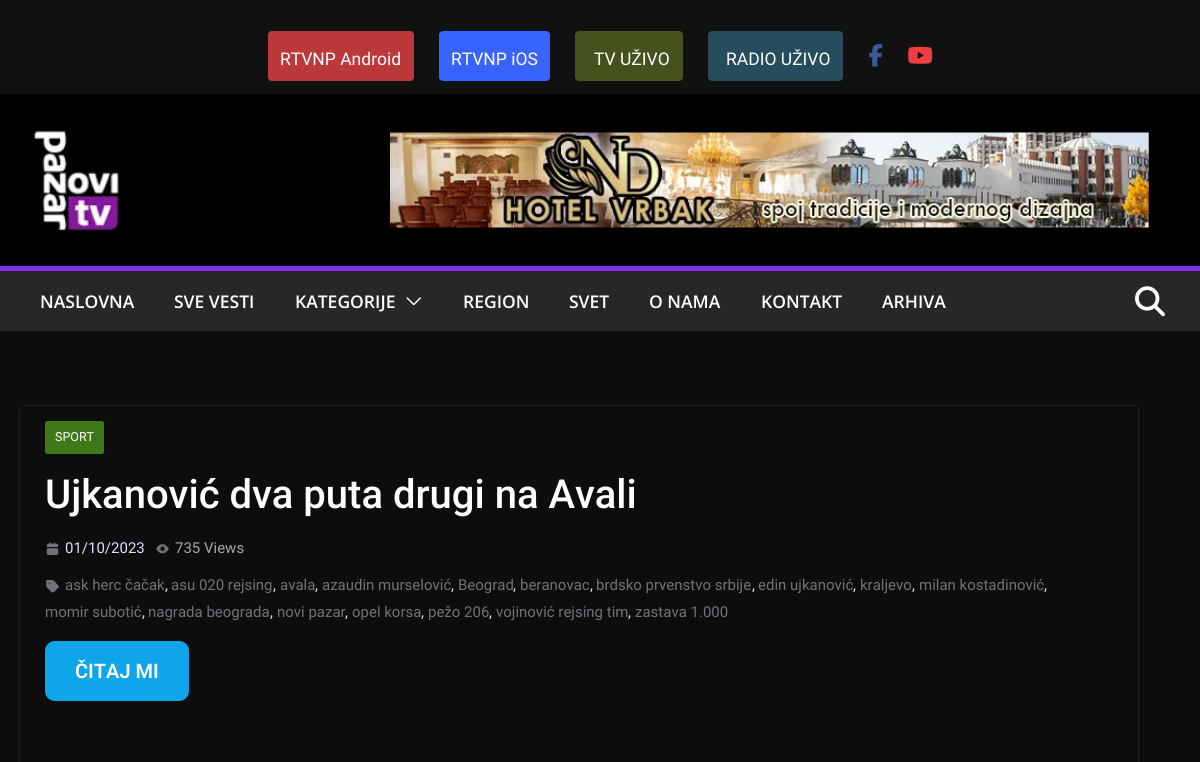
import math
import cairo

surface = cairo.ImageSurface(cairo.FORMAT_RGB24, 1200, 762)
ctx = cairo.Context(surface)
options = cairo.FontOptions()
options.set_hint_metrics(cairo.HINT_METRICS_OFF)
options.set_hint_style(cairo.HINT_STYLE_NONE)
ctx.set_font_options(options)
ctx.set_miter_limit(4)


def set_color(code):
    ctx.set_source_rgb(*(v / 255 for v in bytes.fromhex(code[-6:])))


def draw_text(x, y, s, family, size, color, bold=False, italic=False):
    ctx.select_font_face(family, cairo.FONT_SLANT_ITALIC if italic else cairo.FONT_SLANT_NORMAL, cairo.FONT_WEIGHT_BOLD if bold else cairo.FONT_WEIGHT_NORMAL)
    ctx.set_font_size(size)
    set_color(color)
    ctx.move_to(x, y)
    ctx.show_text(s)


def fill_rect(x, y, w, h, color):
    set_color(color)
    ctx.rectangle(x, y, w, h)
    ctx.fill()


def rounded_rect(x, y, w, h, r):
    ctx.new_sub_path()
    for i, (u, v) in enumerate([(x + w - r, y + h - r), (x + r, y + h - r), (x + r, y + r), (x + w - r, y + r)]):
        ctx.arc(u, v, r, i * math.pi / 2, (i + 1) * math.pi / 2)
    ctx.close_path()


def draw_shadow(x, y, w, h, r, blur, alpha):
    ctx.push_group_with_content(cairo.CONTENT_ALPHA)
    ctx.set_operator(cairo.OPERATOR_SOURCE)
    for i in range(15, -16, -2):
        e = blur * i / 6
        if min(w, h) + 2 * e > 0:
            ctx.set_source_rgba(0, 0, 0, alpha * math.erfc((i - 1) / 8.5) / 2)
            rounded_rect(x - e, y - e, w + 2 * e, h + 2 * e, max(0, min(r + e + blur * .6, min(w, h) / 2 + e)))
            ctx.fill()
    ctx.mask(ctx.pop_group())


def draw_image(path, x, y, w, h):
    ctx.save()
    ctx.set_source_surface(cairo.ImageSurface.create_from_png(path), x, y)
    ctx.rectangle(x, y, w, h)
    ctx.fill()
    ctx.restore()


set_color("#0d0d0d")
ctx.paint()
fill_rect(0, 94, 1200, 172, "#000000")
fill_rect(0, 0, 1200, 94, "#111111")
set_color("#bb383b")
rounded_rect(268, 31, 146, 50, 4)
ctx.fill()
draw_text(280, 65, "RTVNP Android", "Roboto", 17.5, "#ffffff")
set_color("#3863ff")
rounded_rect(439, 31, 111, 50, 4)
ctx.fill()
draw_text(451, 65, "RTVNP iOS", "Roboto", 17.5, "#ffffff")
set_color("#45521d")
rounded_rect(575, 31, 108, 50, 4)
ctx.fill()
draw_text(594, 65, "TV UŽIVO", "Roboto", 17.5, "#ffffff")
set_color("#264d5e")
rounded_rect(708, 31, 135, 50, 4)
ctx.fill()
draw_text(726, 65, "RADIO UŽIVO", "Roboto", 17.5, "#ffffff")
draw_image("assets/img1.png", 869, 44, 14, 23)
draw_image("assets/img2.png", 908, 46, 25, 18)
draw_image("assets/img3.png", 33, 131, 87, 102)
draw_image("assets/img4.png", 390, 132, 759, 96)
fill_rect(0, 271, 1200, 60, "#27272a")
fill_rect(0, 266, 1200, 5, "#812ee8")
draw_text(40, 308, "NASLOVNA", "Open Sans SemiBold", 17.5, "#ffffff")
draw_text(174, 308, "SVE VESTI", "Open Sans SemiBold", 17.5, "#ffffff")
draw_text(295, 308, "KATEGORIJE", "Open Sans SemiBold", 17.5, "#ffffff")
draw_image("assets/img5.png", 406, 297, 15, 9)
draw_text(463, 308, "REGION", "Open Sans SemiBold", 17.5, "#ffffff")
draw_text(569, 308, "SVET", "Open Sans SemiBold", 17.5, "#ffffff")
draw_text(649, 308, "O NAMA", "Open Sans SemiBold", 17.5, "#ffffff")
draw_text(761, 308, "KONTAKT", "Open Sans SemiBold", 17.5, "#ffffff")
draw_text(882, 308, "ARHIVA", "Open Sans SemiBold", 17.5, "#ffffff")
draw_image("assets/img6.png", 1135, 286, 30, 31)
ctx.save()
ctx.set_fill_rule(cairo.FILL_RULE_EVEN_ODD)
ctx.new_path()
ctx.move_to(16, 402)
ctx.line_to(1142, 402)
ctx.line_to(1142, 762)
ctx.line_to(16, 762)
ctx.close_path()
ctx.move_to(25, 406)
ctx.line_to(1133, 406)
ctx.curve_to(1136, 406, 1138, 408, 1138, 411)
ctx.line_to(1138, 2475)
ctx.curve_to(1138, 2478, 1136, 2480, 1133, 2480)
ctx.line_to(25, 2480)
ctx.curve_to(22, 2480, 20, 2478, 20, 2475)
ctx.line_to(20, 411)
ctx.curve_to(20, 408, 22, 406, 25, 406)
ctx.close_path()
ctx.clip()
set_color("#ffffff")
draw_shadow(20, 406, 1118, 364, 5, 1, 0.24)
ctx.restore()
set_color("#3e7819")
rounded_rect(45, 421, 59, 33, 2.5)
ctx.fill()
draw_text(55, 441, "SPORT", "Roboto", 12.5, "#ffffff")
draw_text(45, 508, "Ujkanović dva puta drugi na Avali", "Roboto Medium", 40, "#ffffff")
draw_image("assets/img7.png", 46, 542, 13, 13)
draw_text(65, 553, "01/10/2023", "Roboto", 15, "#ddddff")
draw_image("assets/img8.png", 156, 544, 13, 10)
draw_text(175, 553, "735 Views", "Roboto", 15, "#a6a6a6")
draw_image("assets/img9.png", 46, 580, 13, 13)
draw_text(65, 590, "ask herc čačak", "Roboto", 15, "#71717a")
draw_text(165, 590, ",", "Roboto", 15, "#e3e2e2")
draw_text(171, 590, "asu 020 rejsing", "Roboto", 15, "#71717a")
draw_text(273, 590, ",", "Roboto", 15, "#e3e2e2")
draw_text(280, 590, "avala", "Roboto", 15, "#71717a")
draw_text(315, 590, ",", "Roboto", 15, "#e3e2e2")
draw_text(322, 590, "azaudin murselović", "Roboto", 15, "#71717a")
draw_text(451, 590, ",", "Roboto", 15, "#e3e2e2")
draw_text(458, 590, "Beograd", "Roboto", 15, "#71717a")
draw_text(513, 590, ",", "Roboto", 15, "#e3e2e2")
draw_text(520, 590, "beranovac", "Roboto", 15, "#71717a")
draw_text(590, 590, ",", "Roboto", 15, "#e3e2e2")
draw_text(596, 590, "brdsko prvenstvo srbije", "Roboto", 15, "#71717a")
draw_text(752, 590, ",", "Roboto", 15, "#e3e2e2")
draw_text(758, 590, "edin ujkanović", "Roboto", 15, "#71717a")
draw_text(853, 590, ",", "Roboto", 15, "#e3e2e2")
draw_text(860, 590, "kraljevo", "Roboto", 15, "#71717a")
draw_text(912, 590, ",", "Roboto", 15, "#e3e2e2")
draw_text(919, 590, "milan kostadinović", "Roboto", 15, "#71717a")
draw_text(1044, 590, ",", "Roboto", 15, "#e3e2e2")
draw_text(45, 617, "momir subotić", "Roboto", 15, "#71717a")
draw_text(142, 617, ",", "Roboto", 15, "#e3e2e2")
draw_text(148, 617, "nagrada beograda", "Roboto", 15, "#71717a")
draw_text(270, 617, ",", "Roboto", 15, "#e3e2e2")
draw_text(277, 617, "novi pazar", "Roboto", 15, "#71717a")
draw_text(345, 617, ",", "Roboto", 15, "#e3e2e2")
draw_text(352, 617, "opel korsa", "Roboto", 15, "#71717a")
draw_text(421, 617, ",", "Roboto", 15, "#e3e2e2")
draw_text(428, 617, "pežo 206", "Roboto", 15, "#71717a")
draw_text(489, 617, ",", "Roboto", 15, "#e3e2e2")
draw_text(496, 617, "vojinović rejsing tim", "Roboto", 15, "#71717a")
draw_text(628, 617, ",", "Roboto", 15, "#e3e2e2")
draw_text(635, 617, "zastava 1.000", "Roboto", 15, "#71717a")
set_color("#0ea5e9")
rounded_rect(45, 641, 144, 60, 10)
ctx.fill()
draw_text(75, 678, "ČITAJ MI", "Roboto SemiBold", 20, "#ffffff")
surface.write_to_png("output.png")
